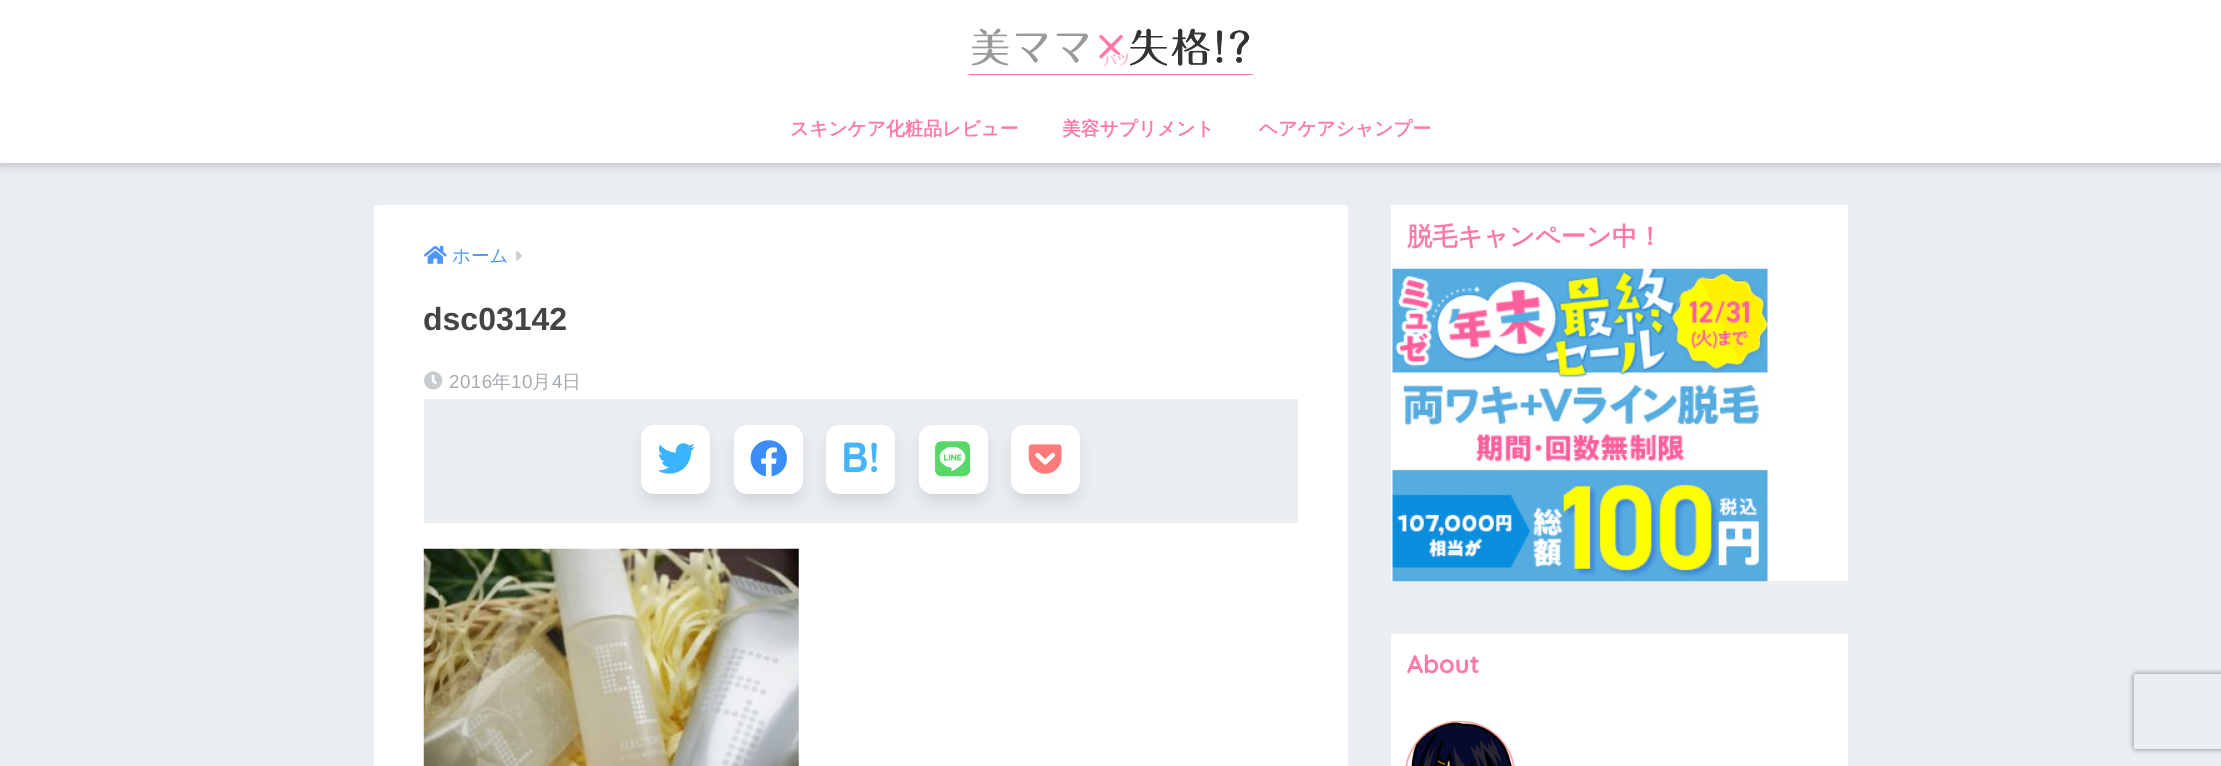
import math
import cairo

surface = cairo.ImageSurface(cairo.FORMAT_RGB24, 2221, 766)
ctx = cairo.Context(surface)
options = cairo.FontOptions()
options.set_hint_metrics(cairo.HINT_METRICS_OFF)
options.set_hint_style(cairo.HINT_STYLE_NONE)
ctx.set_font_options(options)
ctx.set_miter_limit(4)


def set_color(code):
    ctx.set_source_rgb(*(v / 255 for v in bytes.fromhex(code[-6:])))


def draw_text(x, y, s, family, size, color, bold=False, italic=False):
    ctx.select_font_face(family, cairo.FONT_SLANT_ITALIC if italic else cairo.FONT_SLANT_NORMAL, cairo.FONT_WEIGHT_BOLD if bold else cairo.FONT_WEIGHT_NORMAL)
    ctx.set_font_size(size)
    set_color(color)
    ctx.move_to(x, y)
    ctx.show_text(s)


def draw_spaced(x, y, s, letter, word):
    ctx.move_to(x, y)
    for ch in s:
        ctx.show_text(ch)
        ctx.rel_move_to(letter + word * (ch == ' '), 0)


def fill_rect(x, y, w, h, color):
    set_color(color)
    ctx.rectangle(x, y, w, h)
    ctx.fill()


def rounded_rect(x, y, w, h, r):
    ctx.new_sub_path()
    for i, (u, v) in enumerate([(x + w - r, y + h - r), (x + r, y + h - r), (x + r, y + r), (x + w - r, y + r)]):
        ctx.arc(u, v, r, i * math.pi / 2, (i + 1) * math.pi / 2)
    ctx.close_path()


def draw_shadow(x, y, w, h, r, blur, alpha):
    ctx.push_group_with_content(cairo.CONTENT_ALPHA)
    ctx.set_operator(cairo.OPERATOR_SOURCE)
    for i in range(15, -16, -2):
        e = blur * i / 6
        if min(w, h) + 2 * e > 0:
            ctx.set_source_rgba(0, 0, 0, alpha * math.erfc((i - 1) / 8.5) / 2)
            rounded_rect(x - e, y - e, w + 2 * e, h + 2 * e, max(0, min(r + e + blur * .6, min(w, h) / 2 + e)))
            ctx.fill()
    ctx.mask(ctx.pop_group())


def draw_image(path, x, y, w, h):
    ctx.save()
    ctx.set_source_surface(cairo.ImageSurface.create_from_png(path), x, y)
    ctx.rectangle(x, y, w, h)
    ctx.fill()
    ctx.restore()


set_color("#eaedf2")
ctx.paint()
set_color("#000000")
draw_shadow(0, 4, 2221, 162, 0, 4, 0.18)
fill_rect(0, 0, 2221, 163, "#ffffff")
draw_image("assets/img1.png", 968, 28, 285, 47)
draw_text(790, 135, "スキンケア化粧品レビュー", "WenQuanYi Zen Hei", 18.75, "#ff79a7", bold=True)
draw_text(1062, 135, "美容サプリメント", "WenQuanYi Zen Hei", 18.75, "#ff79a7", bold=True)
draw_text(1259, 135, "ヘアケアシャンプー", "WenQuanYi Zen Hei", 18.75, "#ff79a7", bold=True)
set_color("#ffffff")
rounded_rect(374, 205, 974, 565, 4)
ctx.fill()
draw_image("assets/img2.png", 423, 245, 24, 19)
draw_text(452, 262, "ホーム", "WenQuanYi Zen Hei Medium", 18.5, "#4f96f6")
draw_image("assets/img3.png", 516, 251, 6, 10)
draw_text(423, 330, "dsc03142", "Liberation Sans", 32, "#444444", bold=True)
draw_image("assets/img4.png", 424, 371, 19, 19)
ctx.select_font_face("Liberation Sans")
ctx.set_font_size(18.75)
set_color("#a5aaaf")
draw_spaced(449, 388, "2016", 0.5, 0)
ctx.select_font_face("WenQuanYi Zen Hei Medium")
draw_spaced(492, 388, "年", 0.5, 0)
ctx.select_font_face("Liberation Sans")
draw_spaced(511, 388, "10", 0.5, 0)
ctx.select_font_face("WenQuanYi Zen Hei Medium")
draw_spaced(532, 388, "月", 0.5, 0)
ctx.select_font_face("Liberation Sans")
draw_spaced(552, 388, "4", 0.5, 0)
ctx.select_font_face("WenQuanYi Zen Hei Medium")
draw_spaced(562, 388, "日", 0.5, 0)
fill_rect(424, 399, 874, 124, "#eaedf2")
set_color("#000000")
draw_shadow(646, 439, 59, 59, 8, 9.5, 0.15)
set_color("#ffffff")
rounded_rect(641, 425, 69, 69, 13)
ctx.fill()
draw_image("assets/img5.png", 657, 443, 38, 31)
set_color("#000000")
draw_shadow(739, 439, 59, 59, 8, 9.5, 0.15)
set_color("#ffffff")
rounded_rect(734, 425, 69, 69, 13)
ctx.fill()
draw_image("assets/img6.png", 750, 440, 37, 37)
set_color("#000000")
draw_shadow(831, 439, 59, 59, 8, 9.5, 0.15)
set_color("#ffffff")
rounded_rect(826, 425, 69, 69, 13)
ctx.fill()
draw_text(841, 472, "B!", "Quicksand", 42, "#45b5f7", bold=True)
set_color("#000000")
draw_shadow(924, 439, 59, 59, 8, 9.5, 0.15)
set_color("#ffffff")
rounded_rect(919, 425, 69, 69, 13)
ctx.fill()
draw_image("assets/img7.png", 935, 441, 36, 36)
set_color("#000000")
draw_shadow(1016, 439, 59, 59, 8, 9.5, 0.15)
set_color("#ffffff")
rounded_rect(1011, 425, 69, 69, 13)
ctx.fill()
draw_image("assets/img8.png", 1028, 444, 34, 30)
draw_image("assets/img9.png", 423, 548, 376, 218)
fill_rect(1391, 205, 457, 376, "#ffffff")
draw_text(1407, 245, "脱毛キャンペーン中！", "WenQuanYi Zen Hei", 25.25, "#ff79a7", bold=True)
draw_image("assets/img10.png", 1392, 268, 376, 314)
fill_rect(1391, 634, 457, 132, "#ffffff")
draw_text(1407, 673, "About", "Quicksand", 25.25, "#ff79a7", bold=True)
draw_image("assets/img11.png", 1405, 720, 110, 46)
ctx.save()
ctx.set_fill_rule(cairo.FILL_RULE_EVEN_ODD)
ctx.new_path()
ctx.move_to(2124, 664)
ctx.line_to(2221, 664)
ctx.line_to(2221, 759)
ctx.line_to(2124, 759)
ctx.close_path()
ctx.move_to(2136.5, 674)
ctx.line_to(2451.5, 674)
ctx.curve_to(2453, 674, 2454, 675, 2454, 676.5)
ctx.line_to(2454, 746.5)
ctx.curve_to(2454, 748, 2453, 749, 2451.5, 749)
ctx.line_to(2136.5, 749)
ctx.curve_to(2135, 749, 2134, 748, 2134, 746.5)
ctx.line_to(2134, 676.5)
ctx.curve_to(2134, 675, 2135, 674, 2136.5, 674)
ctx.close_path()
ctx.clip()
set_color("#808080")
draw_shadow(2134, 674, 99, 75, 2.5, 3, 1)
ctx.restore()
surface.write_to_png("output.png")
